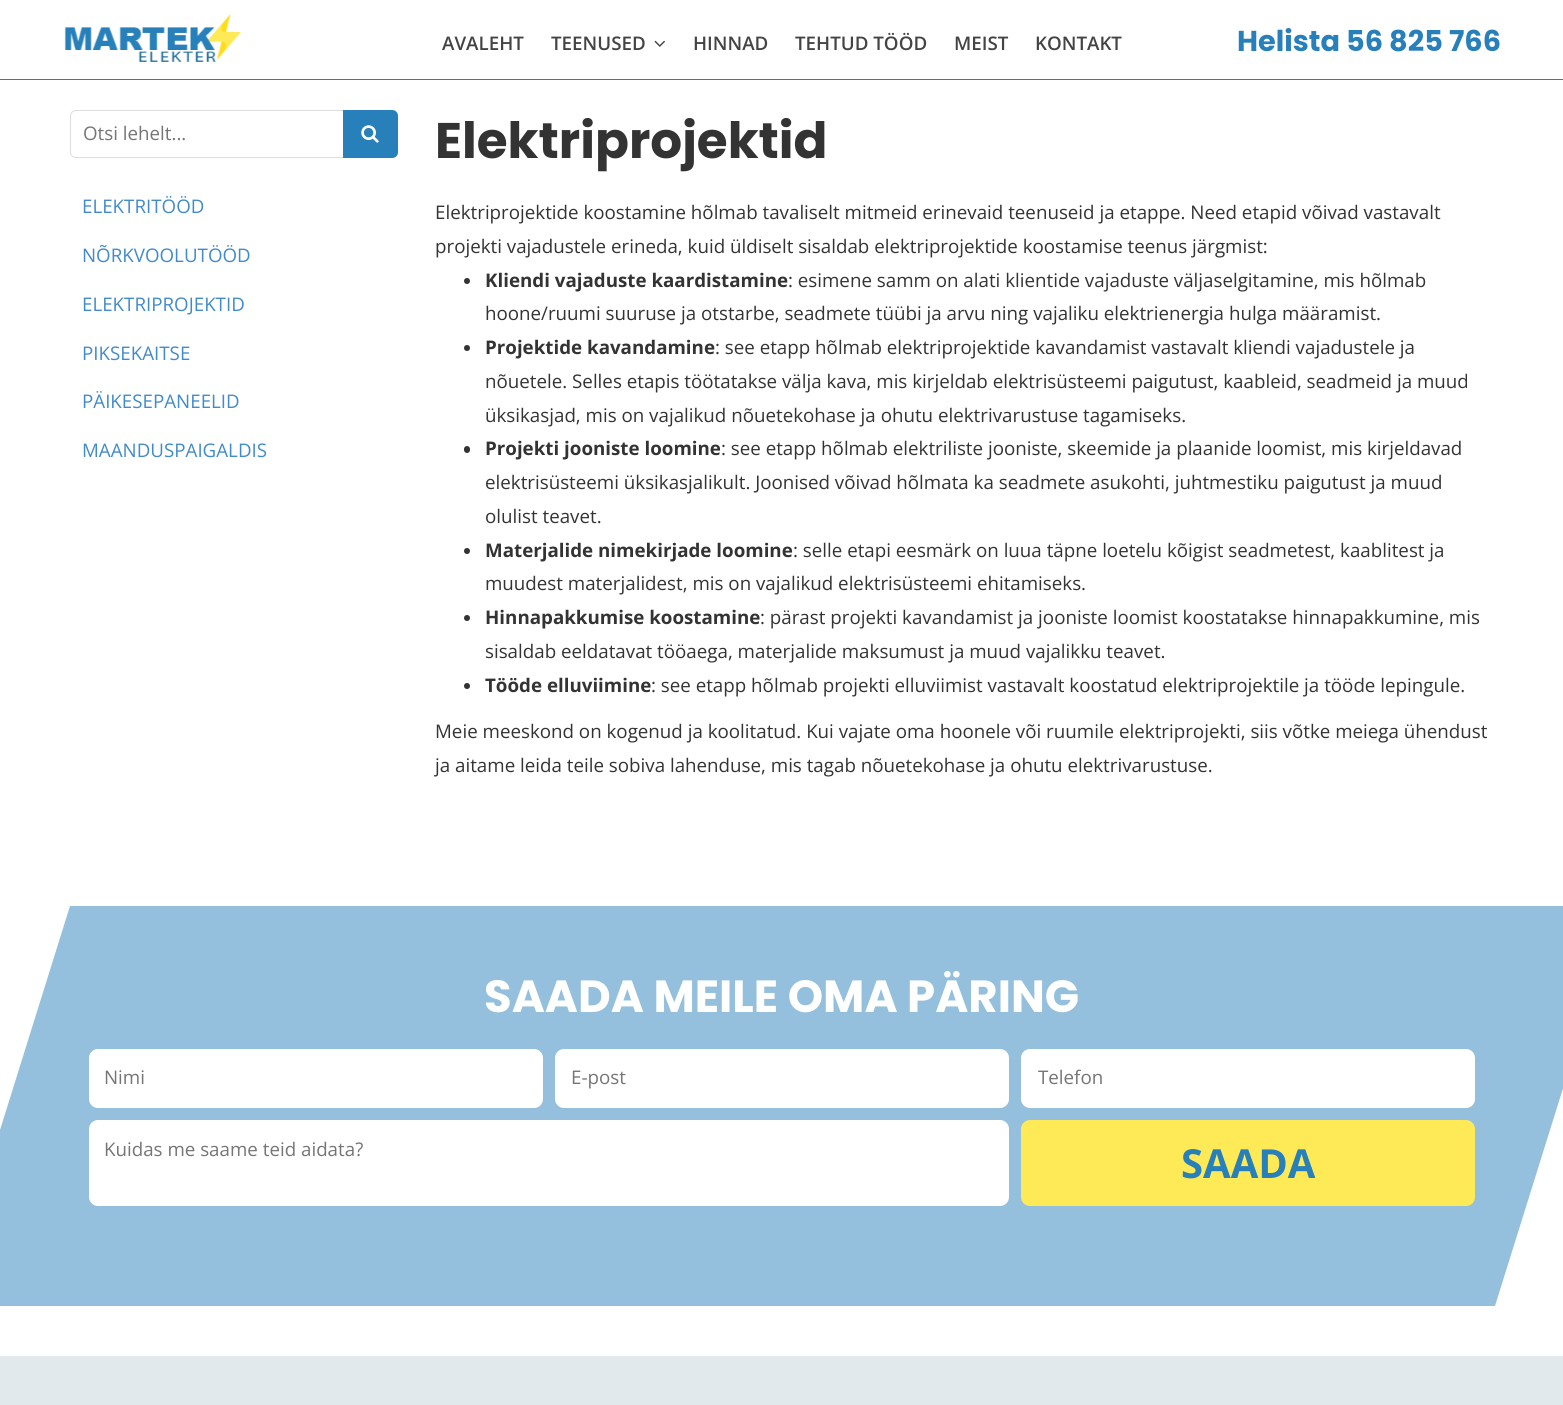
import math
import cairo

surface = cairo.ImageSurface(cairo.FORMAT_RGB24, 1563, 1405)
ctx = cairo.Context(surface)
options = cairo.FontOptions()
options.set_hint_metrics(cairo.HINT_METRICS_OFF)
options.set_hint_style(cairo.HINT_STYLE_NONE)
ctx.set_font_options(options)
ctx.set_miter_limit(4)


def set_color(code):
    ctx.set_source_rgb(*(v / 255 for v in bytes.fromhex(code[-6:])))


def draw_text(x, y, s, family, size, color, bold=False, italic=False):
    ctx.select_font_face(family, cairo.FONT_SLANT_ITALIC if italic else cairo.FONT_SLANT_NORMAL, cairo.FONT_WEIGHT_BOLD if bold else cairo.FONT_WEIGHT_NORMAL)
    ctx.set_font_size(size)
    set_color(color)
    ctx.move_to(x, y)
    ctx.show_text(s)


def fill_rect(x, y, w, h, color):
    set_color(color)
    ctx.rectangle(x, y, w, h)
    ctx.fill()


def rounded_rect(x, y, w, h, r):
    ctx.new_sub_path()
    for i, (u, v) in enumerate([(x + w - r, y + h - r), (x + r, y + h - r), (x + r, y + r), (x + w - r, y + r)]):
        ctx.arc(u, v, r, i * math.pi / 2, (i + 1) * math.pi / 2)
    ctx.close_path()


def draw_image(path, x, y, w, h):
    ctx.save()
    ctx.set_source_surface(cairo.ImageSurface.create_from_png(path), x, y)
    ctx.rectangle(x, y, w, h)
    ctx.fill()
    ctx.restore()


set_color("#ffffff")
ctx.paint()
fill_rect(0, 79, 1563, 1, "#2780ba")
draw_image("assets/img1.png", 64, 14, 177, 48)
draw_text(442, 50, "AVALEHT", "Open Sans SemiBold", 18.75, "#444444")
draw_text(551, 50, "TEENUSED", "Open Sans SemiBold", 18.75, "#444444")
draw_image("assets/img2.png", 654, 40, 11, 7)
draw_text(693, 50, "HINNAD", "Open Sans SemiBold", 18.75, "#444444")
draw_text(795, 50, "TEHTUD TÖÖD", "Open Sans SemiBold", 18.75, "#444444")
draw_text(954, 50, "MEIST", "Open Sans SemiBold", 18.75, "#444444")
draw_text(1035, 50, "KONTAKT", "Open Sans SemiBold", 18.75, "#444444")
draw_text(1237, 51, "Helista 56 825 766", "Poppins", 28.75, "#2880ba", bold=True)
rounded_rect(70.5, 110.5, 327, 47, 5.5)
set_color("#dddddd")
ctx.set_line_width(1)
ctx.stroke()
draw_text(83, 140, "Otsi lehelt...", "Open Sans", 18.75, "#757575")
set_color("#2880ba")
ctx.new_path()
ctx.move_to(343, 110)
ctx.line_to(392, 110)
ctx.curve_to(395.5, 110, 398, 112.5, 398, 116)
ctx.line_to(398, 152)
ctx.curve_to(398, 155.5, 395.5, 158, 392, 158)
ctx.line_to(343, 158)
ctx.close_path()
ctx.fill()
draw_image("assets/img3.png", 361, 125, 18, 18)
draw_text(82, 213, "ELEKTRITÖÖD", "Open Sans", 18.75, "#428bca")
draw_text(82, 262, "NÕRKVOOLUTÖÖD", "Open Sans", 18.75, "#428bca")
draw_text(82, 311, "ELEKTRIPROJEKTID", "Open Sans", 18.75, "#428bca")
draw_text(82, 360, "PIKSEKAITSE", "Open Sans", 18.75, "#428bca")
draw_text(82, 408, "PÄIKESEPANEELID", "Open Sans", 18.75, "#428bca")
draw_text(82, 457, "MAANDUSPAIGALDIS", "Open Sans", 18.75, "#428bca")
draw_text(435, 158, "Elektriprojektid", "Poppins", 50, "#333333", bold=True)
draw_text(435, 219, "Elektriprojektide koostamine hõlmab tavaliselt mitmeid erinevaid teenuseid ja etappe. Need etapid võivad vastavalt", "Open Sans", 18.75, "#333333")
draw_text(435, 253, "projekti vajadustele erineda, kuid üldiselt sisaldab elektriprojektide koostamise teenus järgmist:", "Open Sans", 18.75, "#333333")
ctx.new_path()
ctx.arc(467, 281, 3, 0, 2 * math.pi)
ctx.fill()
draw_text(485, 287, "Kliendi vajaduste kaardistamine", "Open Sans", 18.75, "#333333", bold=True)
draw_text(788, 287, ": esimene samm on alati klientide vajaduste väljaselgitamine, mis hõlmab", "Open Sans", 18.75, "#333333")
draw_text(485, 320, "hoone/ruumi suuruse ja otstarbe, seadmete tüübi ja arvu ning vajaliku elektrienergia hulga määramist.", "Open Sans", 18.75, "#333333")
ctx.new_path()
ctx.arc(467, 348, 3, 0, 2 * math.pi)
ctx.fill()
draw_text(485, 354, "Projektide kavandamine", "Open Sans", 18.75, "#333333", bold=True)
draw_text(715, 354, ": see etapp hõlmab elektriprojektide kavandamist vastavalt kliendi vajadustele ja", "Open Sans", 18.75, "#333333")
draw_text(485, 388, "nõuetele. Selles etapis töötatakse välja kava, mis kirjeldab elektrisüsteemi paigutust, kaableid, seadmeid ja muud", "Open Sans", 18.75, "#333333")
draw_text(485, 422, "üksikasjad, mis on vajalikud nõuetekohase ja ohutu elektrivarustuse tagamiseks.", "Open Sans", 18.75, "#333333")
rounded_rect(464, 446, 6, 7, 3)
ctx.fill()
draw_text(485, 455, "Projekti jooniste loomine", "Open Sans", 18.75, "#333333", bold=True)
draw_text(721, 455, ": see etapp hõlmab elektriliste jooniste, skeemide ja plaanide loomist, mis kirjeldavad", "Open Sans", 18.75, "#333333")
draw_text(485, 489, "elektrisüsteemi üksikasjalikult. Joonised võivad hõlmata ka seadmete asukohti, juhtmestiku paigutust ja muud", "Open Sans", 18.75, "#333333")
draw_text(485, 523, "olulist teavet.", "Open Sans", 18.75, "#333333")
ctx.new_path()
ctx.arc(467, 551, 3, 0, 2 * math.pi)
ctx.fill()
draw_text(485, 557, "Materjalide nimekirjade loomine", "Open Sans", 18.75, "#333333", bold=True)
draw_text(793, 557, ": selle etapi eesmärk on luua täpne loetelu kõigist seadmetest, kaablitest ja", "Open Sans", 18.75, "#333333")
draw_text(485, 590, "muudest materjalidest, mis on vajalikud elektrisüsteemi ehitamiseks.", "Open Sans", 18.75, "#333333")
ctx.new_path()
ctx.arc(467, 618, 3, 0, 2 * math.pi)
ctx.fill()
draw_text(485, 624, "Hinnapakkumise koostamine", "Open Sans", 18.75, "#333333", bold=True)
draw_text(760, 624, ": pärast projekti kavandamist ja jooniste loomist koostatakse hinnapakkumine, mis", "Open Sans", 18.75, "#333333")
draw_text(485, 658, "sisaldab eeldatavat tööaega, materjalide maksumust ja muud vajalikku teavet.", "Open Sans", 18.75, "#333333")
ctx.new_path()
ctx.arc(467, 686, 3, 0, 2 * math.pi)
ctx.fill()
draw_text(485, 692, "Tööde elluviimine", "Open Sans", 18.75, "#333333", bold=True)
draw_text(651, 692, ": see etapp hõlmab projekti elluviimist vastavalt koostatud elektriprojektile ja tööde lepingule.", "Open Sans", 18.75, "#333333")
draw_text(435, 738, "Meie meeskond on kogenud ja koolitatud. Kui vajate oma hoonele või ruumile elektriprojekti, siis võtke meiega ühendust", "Open Sans", 18.75, "#333333")
draw_text(435, 772, "ja aitame leida teile sobiva lahenduse, mis tagab nõuetekohase ja ohutu elektrivarustuse.", "Open Sans", 18.75, "#333333")
set_color("#94c0dd")
ctx.new_path()
ctx.move_to(70, 1306)
ctx.line_to(-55, 1306)
ctx.line_to(70, 906)
ctx.close_path()
ctx.fill()
fill_rect(70, 906, 1425, 400, "#94c0dd")
draw_text(484, 1012, "SAADA MEILE OMA PÄRING", "Poppins", 45, "#ffffff", bold=True)
rounded_rect(89, 1049, 454, 59, 9)
ctx.fill()
draw_text(104, 1084, "Nimi", "Open Sans", 18.75, "#757575")
set_color("#ffffff")
rounded_rect(555, 1049, 454, 59, 9)
ctx.fill()
draw_text(571, 1084, "E-post", "Open Sans", 18.75, "#757575")
set_color("#ffffff")
rounded_rect(1021, 1049, 454, 59, 9)
ctx.fill()
draw_text(1038, 1084, "Telefon", "Open Sans", 18.75, "#757575")
set_color("#ffffff")
rounded_rect(89, 1120, 920, 86, 9)
ctx.fill()
draw_text(104, 1156, "Kuidas me saame teid aidata?", "Open Sans", 18.75, "#757575")
set_color("#feea57")
rounded_rect(1021, 1120, 454, 86, 9)
ctx.fill()
draw_text(1181, 1178, "SAADA", "Open Sans", 40, "#2880ba", bold=True)
set_color("#94c0dd")
ctx.new_path()
ctx.move_to(1495, 906)
ctx.line_to(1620, 906)
ctx.line_to(1495, 1306)
ctx.close_path()
ctx.fill()
fill_rect(0, 1356, 1563, 49, "#e1e9ec")
surface.write_to_png("output.png")
